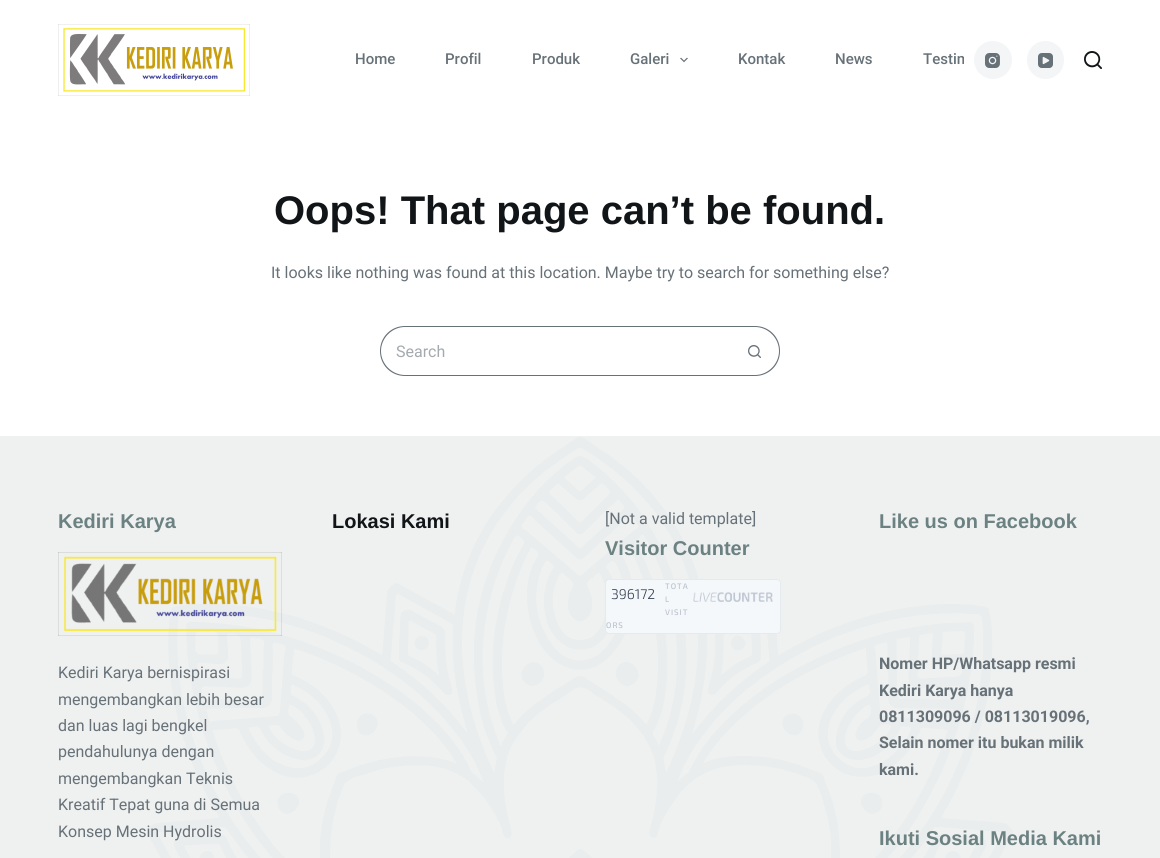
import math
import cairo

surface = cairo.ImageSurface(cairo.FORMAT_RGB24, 1160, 858)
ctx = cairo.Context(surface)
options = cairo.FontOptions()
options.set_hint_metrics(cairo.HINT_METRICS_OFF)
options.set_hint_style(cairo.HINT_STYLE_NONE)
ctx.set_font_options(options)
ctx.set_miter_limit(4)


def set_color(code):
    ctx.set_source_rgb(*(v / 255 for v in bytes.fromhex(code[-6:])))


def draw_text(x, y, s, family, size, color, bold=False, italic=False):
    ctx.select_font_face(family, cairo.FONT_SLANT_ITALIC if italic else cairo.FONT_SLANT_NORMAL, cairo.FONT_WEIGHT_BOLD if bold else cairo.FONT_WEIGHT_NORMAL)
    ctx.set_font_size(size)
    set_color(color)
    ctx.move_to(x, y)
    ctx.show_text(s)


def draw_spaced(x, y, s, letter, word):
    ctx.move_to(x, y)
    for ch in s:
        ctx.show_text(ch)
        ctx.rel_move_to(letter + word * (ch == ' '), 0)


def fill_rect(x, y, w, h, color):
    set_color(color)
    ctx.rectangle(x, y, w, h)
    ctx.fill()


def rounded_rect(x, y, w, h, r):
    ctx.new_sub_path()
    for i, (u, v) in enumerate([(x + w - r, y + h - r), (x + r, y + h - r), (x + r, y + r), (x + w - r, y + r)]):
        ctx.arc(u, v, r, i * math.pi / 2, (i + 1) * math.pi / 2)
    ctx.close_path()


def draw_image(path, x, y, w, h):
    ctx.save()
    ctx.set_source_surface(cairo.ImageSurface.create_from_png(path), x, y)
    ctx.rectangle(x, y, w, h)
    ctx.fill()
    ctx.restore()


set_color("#ffffff")
ctx.paint()
draw_image("assets/img1.png", 58, 24, 192, 72)
draw_text(355, 64, "Home", "Roboto Medium", 15, "#677178")
draw_text(445, 64, "Profil", "Roboto Medium", 15, "#677178")
draw_text(532, 64, "Produk", "Roboto Medium", 15, "#677178")
draw_text(630, 64, "Galeri", "Roboto Medium", 15, "#677178")
draw_image("assets/img2.png", 680, 57, 8, 6)
draw_text(738, 64, "Kontak", "Roboto Medium", 15, "#677178")
draw_text(835, 64, "News", "Roboto Medium", 15, "#677178")
ctx.save()
ctx.rectangle(330, 0, 634, 120)
ctx.clip()
draw_text(923, 64, "Testim", "Roboto Medium", 15, "#677178")
ctx.restore()
set_color("#f4f5f7")
ctx.new_path()
ctx.arc(993, 60, 19, 0, 2 * math.pi)
ctx.fill()
draw_image("assets/img3.png", 985, 53, 15, 15)
rounded_rect(1027, 41, 37, 38, 18.5)
ctx.fill()
draw_image("assets/img4.png", 1038, 53, 15, 15)
draw_image("assets/img5.png", 1084, 51, 18, 18)
draw_text(274, 224, "Oops! That page can’t be found.", "Liberation Sans", 40, "#111518", bold=True)
draw_text(271, 278, "It looks like nothing was found at this location. Maybe try to search for something else?", "Roboto", 16, "#677178")
ctx.set_fill_rule(cairo.FILL_RULE_EVEN_ODD)
ctx.new_path()
ctx.move_to(405, 326)
ctx.line_to(730, 326)
ctx.line_to(730, 376)
ctx.line_to(405, 376)
ctx.curve_to(391, 376, 380, 365, 380, 351)
ctx.curve_to(380, 337, 391, 326, 405, 326)
ctx.close_path()
ctx.move_to(405, 327)
ctx.line_to(730, 327)
ctx.line_to(730, 375)
ctx.line_to(405, 375)
ctx.curve_to(392, 375, 381, 364, 381, 351)
ctx.curve_to(381, 338, 392, 327, 405, 327)
ctx.close_path()
ctx.fill()
draw_text(396, 357, "Search", "Roboto", 16, "#a4aaae")
set_color("#677178")
ctx.new_path()
ctx.move_to(730, 326)
ctx.line_to(755, 326)
ctx.curve_to(769, 326, 780, 337, 780, 351)
ctx.curve_to(780, 365, 769, 376, 755, 376)
ctx.line_to(730, 376)
ctx.close_path()
ctx.move_to(730, 327)
ctx.line_to(755, 327)
ctx.curve_to(768, 327, 779, 338, 779, 351)
ctx.curve_to(779, 364, 768, 375, 755, 375)
ctx.line_to(730, 375)
ctx.close_path()
ctx.fill()
draw_image("assets/img6.png", 748, 345, 13, 13)
fill_rect(0, 436, 1160, 422, "#eff1f1")
draw_image("assets/img7.png", 148, 437, 865, 421)
draw_text(58, 528, "Kediri Karya", "Liberation Sans", 20, "#6c8181", bold=True)
draw_image("assets/img8.png", 58, 552, 224, 84)
draw_text(58, 678, "Kediri Karya bernispirasi", "Roboto", 16, "#677178")
draw_text(58, 705, "mengembangkan lebih besar", "Roboto", 16, "#677178")
draw_text(58, 731, "dan luas lagi bengkel", "Roboto", 16, "#677178")
draw_text(58, 757, "pendahulunya dengan", "Roboto", 16, "#677178")
draw_text(58, 784, "mengembangkan Teknis", "Roboto", 16, "#677178")
draw_text(58, 810, "Kreatif Tepat guna di Semua", "Roboto", 16, "#677178")
draw_text(58, 837, "Konsep Mesin Hydrolis", "Roboto", 16, "#677178")
draw_text(332, 528, "Lokasi Kami", "Liberation Sans", 20, "#111518", bold=True)
draw_text(605, 524, "[Not a valid template]", "Roboto", 16, "#677178")
draw_text(605, 555, "Visitor Counter", "Liberation Sans", 20, "#6c8181", bold=True)
set_color("#f5f8fa")
rounded_rect(605.5, 579.5, 175, 54, 3.5)
ctx.fill_preserve()
set_color("#e6eaee")
ctx.set_line_width(1)
ctx.stroke()
ctx.select_font_face("Exo 2 Medium")
ctx.set_font_size(8)
set_color("#b7c0cd")
draw_spaced(665, 589, "TOTA", 1, 0)
draw_spaced(665, 602, "L", 1, 0)
draw_spaced(665, 615, "VISIT", 1, 0)
draw_spaced(606, 628, "ORS", 1, 0)
draw_text(611, 599, "396172", "Exo 2 Light", 14, "#354052")
draw_image("assets/img9.png", 693, 592, 80, 10)
draw_text(879, 528, "Like us on Facebook", "Liberation Sans", 20, "#6c8181", bold=True)
draw_text(879, 669, "Nomer HP/Whatsapp resmi", "Roboto", 16, "#677178", bold=True)
draw_text(879, 696, "Kediri Karya hanya", "Roboto", 16, "#677178", bold=True)
draw_text(879, 722, "0811309096 / 08113019096,", "Roboto", 16, "#677178", bold=True)
draw_text(879, 748, "Selain nomer itu bukan milik", "Roboto", 16, "#677178", bold=True)
draw_text(879, 775, "kami.", "Roboto", 16, "#677178", bold=True)
draw_text(879, 845, "Ikuti Sosial Media Kami", "Liberation Sans", 20, "#6c8181", bold=True)
surface.write_to_png("output.png")
